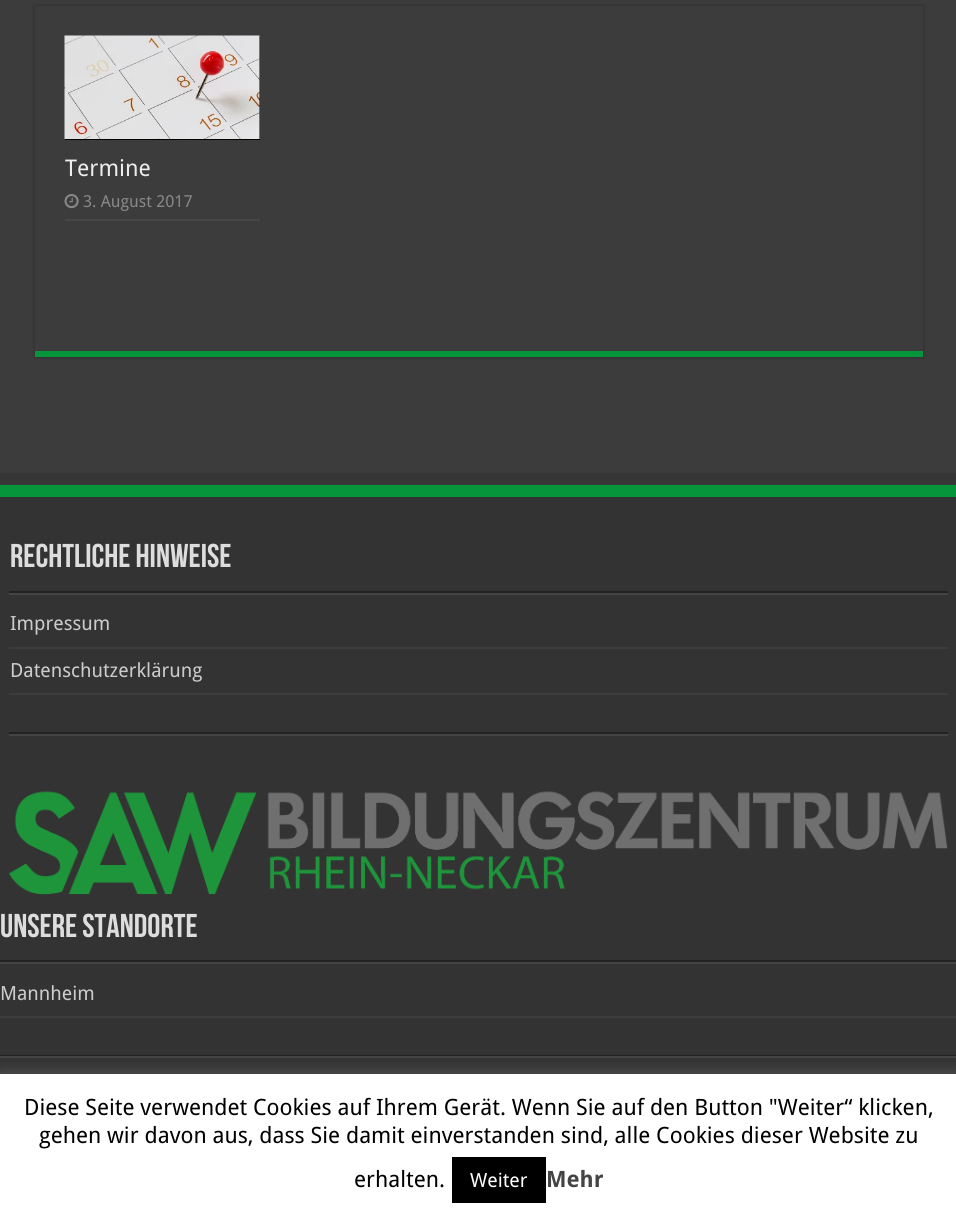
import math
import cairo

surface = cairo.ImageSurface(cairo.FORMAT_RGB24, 956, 1220)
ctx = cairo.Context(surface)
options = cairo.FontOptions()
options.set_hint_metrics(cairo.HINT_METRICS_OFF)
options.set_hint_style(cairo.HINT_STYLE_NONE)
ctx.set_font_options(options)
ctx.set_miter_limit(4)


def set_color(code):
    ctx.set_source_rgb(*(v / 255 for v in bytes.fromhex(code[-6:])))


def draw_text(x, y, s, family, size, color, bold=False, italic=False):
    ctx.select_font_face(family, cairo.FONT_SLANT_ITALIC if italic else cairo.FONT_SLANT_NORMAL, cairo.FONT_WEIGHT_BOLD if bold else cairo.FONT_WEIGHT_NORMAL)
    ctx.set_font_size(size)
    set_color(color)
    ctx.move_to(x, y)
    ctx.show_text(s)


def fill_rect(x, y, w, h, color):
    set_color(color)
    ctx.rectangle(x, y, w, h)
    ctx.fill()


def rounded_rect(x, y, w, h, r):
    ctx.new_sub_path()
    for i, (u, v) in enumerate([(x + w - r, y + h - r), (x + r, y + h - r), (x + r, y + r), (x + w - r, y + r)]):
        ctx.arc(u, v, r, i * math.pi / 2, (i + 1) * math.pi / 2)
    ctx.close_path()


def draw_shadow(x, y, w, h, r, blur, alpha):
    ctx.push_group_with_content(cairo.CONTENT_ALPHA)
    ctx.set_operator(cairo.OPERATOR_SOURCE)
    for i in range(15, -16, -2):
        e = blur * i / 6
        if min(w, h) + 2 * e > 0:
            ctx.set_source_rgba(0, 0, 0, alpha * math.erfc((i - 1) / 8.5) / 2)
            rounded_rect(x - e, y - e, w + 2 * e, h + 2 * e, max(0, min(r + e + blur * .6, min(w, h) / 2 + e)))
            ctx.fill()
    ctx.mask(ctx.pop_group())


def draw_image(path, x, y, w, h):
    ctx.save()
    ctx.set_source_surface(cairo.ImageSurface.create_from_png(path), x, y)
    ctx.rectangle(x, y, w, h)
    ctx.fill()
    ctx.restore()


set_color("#3c3c3c")
ctx.paint()
set_color("#2a2a2a")
draw_shadow(35, 6, 888, 351, 0, 2, 1)
fill_rect(35, 6, 888, 345, "#3c3c3c")
fill_rect(35, 351, 888, 6, "#06953a")
fill_rect(65, 36, 195, 104, "#000000")
draw_image("assets/img1.png", 64, 35, 196, 104)
draw_text(65, 176, "Termine", "Droid Sans", 23, "#ececec")
fill_rect(65, 219, 195, 2, "#474747")
draw_image("assets/img2.png", 64, 194, 15, 15)
draw_text(83, 207, "3. August 2017", "Droid Sans", 16.5, "#888888")
fill_rect(0, 473, 956, 11, "#363636")
fill_rect(0, 497, 956, 577, "#333333")
fill_rect(0, 485, 956, 12, "#06953a")
fill_rect(9, 591, 939, 2, "#222222")
draw_text(10, 567, "Rechtliche Hinweise", "Bebas Neue", 33, "#dddddd", bold=True)
fill_rect(9, 593, 939, 2, "#444444")
fill_rect(9, 647, 939, 2, "#3c3c3c")
draw_text(10, 630, "Impressum", "Droid Sans", 19.5, "#cccccc")
fill_rect(9, 693, 939, 2, "#3c3c3c")
draw_text(10, 677, "Datenschutzerklärung", "Droid Sans", 19.5, "#cccccc")
fill_rect(9, 732, 939, 2, "#222222")
fill_rect(9, 734, 939, 2, "#444444")
draw_image("assets/img3.png", 9, 791, 939, 104)
fill_rect(0, 960, 956, 2, "#222222")
draw_text(0, 937, "Unsere Standorte", "Bebas Neue", 33, "#dddddd", bold=True)
fill_rect(0, 962, 956, 2, "#444444")
fill_rect(0, 1016, 956, 2, "#3c3c3c")
draw_text(0, 1000, "Mannheim", "Droid Sans", 19.5, "#cccccc")
fill_rect(0, 1055, 956, 1, "#222222")
fill_rect(0, 1056, 956, 2, "#444444")
set_color("#acabab")
draw_shadow(0, 1073, 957, 147, 0, 7.5, 0.3)
fill_rect(0, 1074, 956, 146, "#ffffff")
draw_text(24, 1115, "Diese Seite verwendet Cookies auf Ihrem Gerät. Wenn Sie auf den Button \"Weiter“ klicken,", "Droid Sans", 22.5, "#000000")
draw_text(39, 1143, "gehen wir davon aus, dass Sie damit einverstanden sind, alle Cookies dieser Website zu", "Droid Sans", 22.5, "#000000")
draw_text(354, 1187, "erhalten.", "Droid Sans", 22.5, "#000000")
fill_rect(452, 1157, 94, 46, "#000000")
draw_text(470, 1187, "Weiter", "Droid Sans", 19.5, "#ffffff")
draw_text(546, 1187, "Mehr", "Droid Sans", 22.5, "#444444", bold=True)
surface.write_to_png("output.png")
